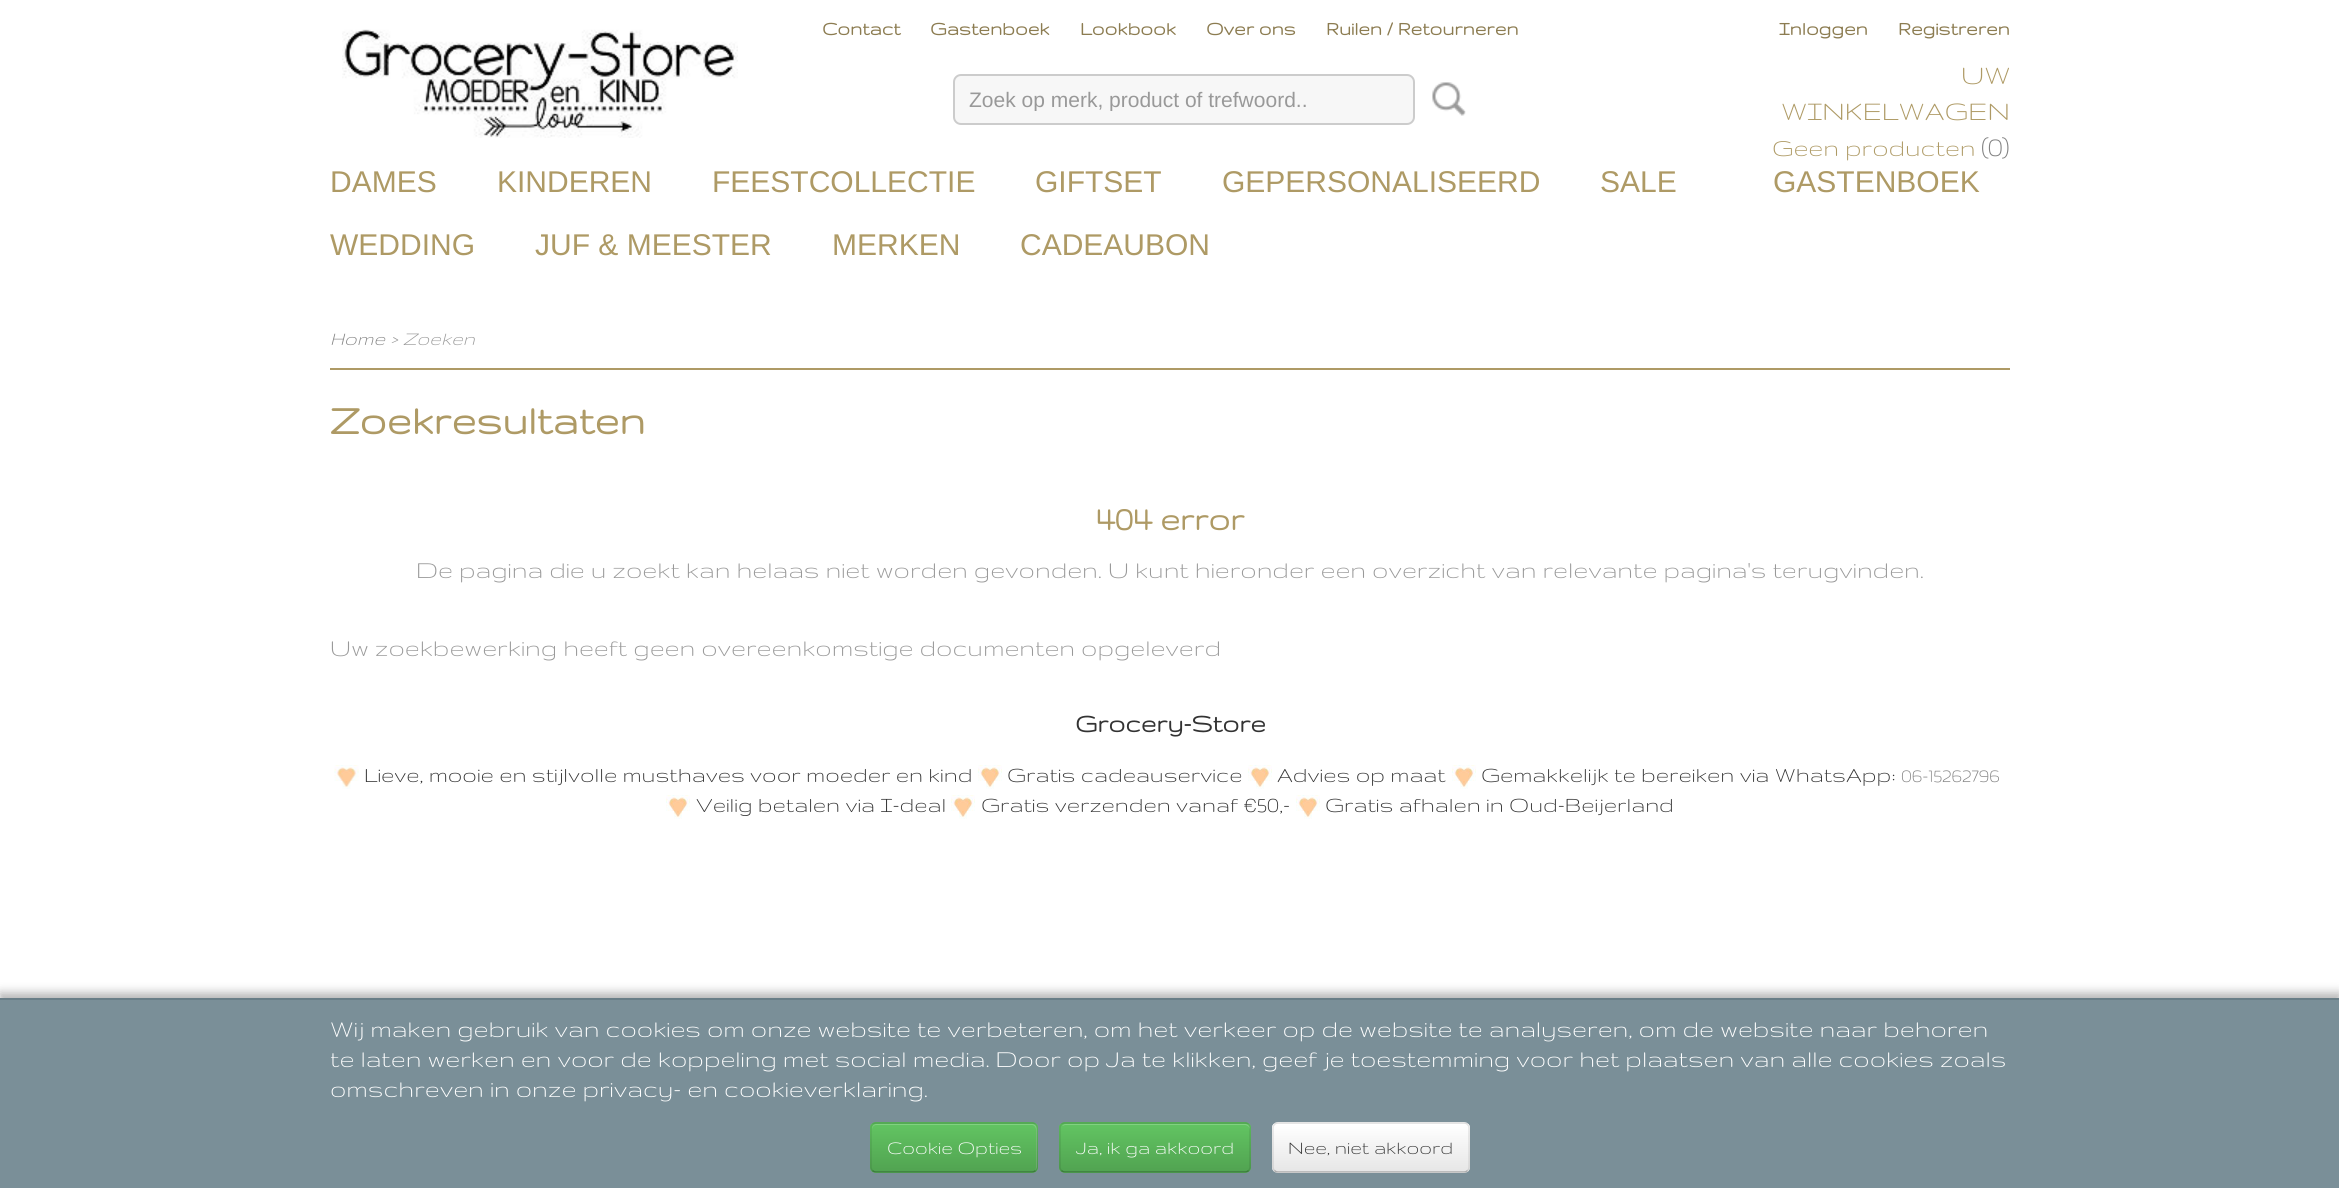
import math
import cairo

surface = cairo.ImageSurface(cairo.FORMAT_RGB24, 2339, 1188)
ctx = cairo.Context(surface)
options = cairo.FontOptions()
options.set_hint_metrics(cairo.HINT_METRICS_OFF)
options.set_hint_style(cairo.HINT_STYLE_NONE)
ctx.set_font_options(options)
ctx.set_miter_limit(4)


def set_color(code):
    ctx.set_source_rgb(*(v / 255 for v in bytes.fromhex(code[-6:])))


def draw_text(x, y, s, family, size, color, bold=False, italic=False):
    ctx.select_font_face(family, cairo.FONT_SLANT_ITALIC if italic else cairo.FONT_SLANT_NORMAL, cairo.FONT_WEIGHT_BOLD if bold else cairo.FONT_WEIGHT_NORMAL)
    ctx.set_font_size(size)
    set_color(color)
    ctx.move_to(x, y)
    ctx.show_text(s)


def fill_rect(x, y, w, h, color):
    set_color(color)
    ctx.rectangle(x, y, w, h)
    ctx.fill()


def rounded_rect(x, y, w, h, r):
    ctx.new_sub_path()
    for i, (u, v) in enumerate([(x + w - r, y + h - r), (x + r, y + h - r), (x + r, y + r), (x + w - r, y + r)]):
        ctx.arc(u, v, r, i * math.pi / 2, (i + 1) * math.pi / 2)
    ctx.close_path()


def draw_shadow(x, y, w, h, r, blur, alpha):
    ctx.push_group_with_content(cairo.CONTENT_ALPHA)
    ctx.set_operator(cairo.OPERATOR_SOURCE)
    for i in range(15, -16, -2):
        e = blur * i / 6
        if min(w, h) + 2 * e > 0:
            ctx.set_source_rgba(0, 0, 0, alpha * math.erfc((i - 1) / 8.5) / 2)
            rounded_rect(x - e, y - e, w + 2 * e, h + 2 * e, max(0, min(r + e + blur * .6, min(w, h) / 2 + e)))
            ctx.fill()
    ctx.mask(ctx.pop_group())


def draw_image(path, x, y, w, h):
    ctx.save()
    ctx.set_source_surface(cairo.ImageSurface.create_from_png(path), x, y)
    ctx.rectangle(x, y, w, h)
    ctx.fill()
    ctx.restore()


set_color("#ffffff")
ctx.paint()
draw_image("assets/img1.png", 342, 29, 396, 109)
draw_text(822, 35, "Contact", "Gruppo", 21, "#8c7c51", bold=True)
draw_text(930, 35, "Gastenboek", "Gruppo", 21, "#8c7c51", bold=True)
draw_text(1080, 35, "Lookbook", "Gruppo", 21, "#8c7c51", bold=True)
draw_text(1206, 35, "Over ons", "Gruppo", 21, "#8c7c51", bold=True)
draw_text(1326, 35, "Ruilen / Retourneren", "Gruppo", 21, "#8c7c51", bold=True)
draw_text(1779, 35, "Inloggen", "Gruppo", 21, "#8c7c51", bold=True)
draw_text(1898, 35, "Registreren", "Gruppo", 21, "#8c7c51", bold=True)
draw_text(1961, 84, "UW", "Gruppo", 30, "#ae9a65")
draw_text(1781, 120, "WINKELWAGEN", "Gruppo", 30, "#ae9a65")
draw_text(1772, 156, "Geen producten", "Gruppo", 27, "#ae9a65")
draw_text(1981, 156, "(0)", "Gruppo", 30, "#828282")
set_color("#f7f7f7")
rounded_rect(954, 75, 460, 49, 7)
ctx.fill_preserve()
set_color("#cccccc")
ctx.stroke()
ctx.save()
ctx.rectangle(969, 87, 429, 24)
ctx.clip()
draw_text(969, 107, "Zoek op merk, product of trefwoord..", "Liberation Sans", 21, "#999999")
ctx.restore()
draw_image("assets/img2.png", 1432, 82, 34, 34)
draw_text(330, 192, "DAMES", "Liberation Sans", 30, "#ae9a65")
draw_text(497, 192, "KINDEREN", "Liberation Sans", 30, "#ae9a65")
draw_text(712, 192, "FEESTCOLLECTIE", "Liberation Sans", 30, "#ae9a65")
draw_text(1035, 192, "GIFTSET", "Liberation Sans", 30, "#ae9a65")
draw_text(1222, 192, "GEPERSONALISEERD", "Liberation Sans", 30, "#ae9a65")
draw_text(1600, 192, "SALE", "Liberation Sans", 30, "#ae9a65")
draw_text(330, 255, "WEDDING", "Liberation Sans", 30, "#ae9a65")
draw_text(535, 255, "JUF & MEESTER", "Liberation Sans", 30, "#ae9a65")
draw_text(832, 255, "MERKEN", "Liberation Sans", 30, "#ae9a65")
draw_text(1020, 255, "CADEAUBON", "Liberation Sans", 30, "#ae9a65")
draw_text(1773, 192, "GASTENBOEK", "Liberation Sans", 30, "#ae9a65")
fill_rect(330, 368, 1680, 2, "#ae9a65")
draw_text(330, 345, "Home", "Gruppo", 21, "#828282", italic=True)
draw_text(390, 345, "> Zoeken", "Gruppo", 21, "#999999", italic=True)
draw_text(330, 434, "Zoekresultaten", "Gruppo", 45, "#ae9a65", bold=True)
draw_text(1096, 530, "404 error", "Gruppo", 36, "#ae9a65", bold=True)
draw_text(416, 578, "De pagina die u zoekt kan helaas niet worden gevonden. U kunt hieronder een overzicht van relevante pagina's terugvinden.", "Gruppo", 27, "#999999")
draw_text(330, 656, "Uw zoekbewerking heeft geen overeenkomstige documenten opgeleverd", "Gruppo", 27, "#999999")
draw_text(1075, 732, "Grocery-Store", "Gruppo", 28, "#333333", bold=True)
draw_image("assets/img3.png", 334, 765, 25, 24)
draw_text(364, 782, "Lieve, mooie en stijlvolle musthaves voor moeder en kind", "Gruppo", 24, "#333333")
draw_image("assets/img4.png", 978, 765, 24, 24)
draw_text(1007, 782, "Gratis cadeauservice", "Gruppo", 24, "#333333")
draw_image("assets/img4.png", 1248, 765, 24, 24)
draw_text(1277, 782, "Advies op maat", "Gruppo", 24, "#333333")
draw_image("assets/img4.png", 1452, 765, 24, 24)
draw_text(1481, 782, "Gemakkelijk te bereiken via WhatsApp:", "Gruppo", 24, "#333333")
draw_text(1901, 782, "06-15262796", "Gruppo", 21, "#828282")
draw_image("assets/img4.png", 666, 795, 24, 24)
draw_text(696, 812, "Veilig betalen via I-deal", "Gruppo", 24, "#333333")
draw_image("assets/img4.png", 951, 795, 24, 24)
draw_text(981, 812, "Gratis verzenden vanaf €50,-", "Gruppo", 24, "#333333")
draw_image("assets/img4.png", 1296, 795, 24, 24)
draw_text(1325, 812, "Gratis afhalen in Oud-Beijerland", "Gruppo", 24, "#333333")
set_color("#000000")
draw_shadow(0, 993, 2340, 191, 0, 5, 0.3)
fill_rect(0, 1000, 2339, 188, "#7a8f98")
fill_rect(0, 998, 2339, 2, "#697e87")
draw_text(330, 1037, "Wij maken gebruik van cookies om onze website te verbeteren, om het verkeer op de website te analyseren, om de website naar behoren", "Gruppo", 27, "#ffffff")
draw_text(330, 1067, "te laten werken en voor de koppeling met social media. Door op Ja te klikken, geef je toestemming voor het plaatsen van alle cookies zoals", "Gruppo", 27, "#ffffff")
draw_text(330, 1097, "omschreven in onze privacy- en cookieverklaring.", "Gruppo", 27, "#ffffff")
set_color("#5bb75b")
rounded_rect(870, 1122, 168, 51, 6)
ctx.fill()
ctx.save()
rounded_rect(870, 1122, 168, 51, 6)
ctx.clip()
gradient = cairo.LinearGradient(954, 1124, 954, 1172)
gradient.add_color_stop_rgba(0, 0.384, 0.769, 0.384, 1)
gradient.add_color_stop_rgba(1, 0.318, 0.639, 0.318, 1)
ctx.set_source(gradient)
ctx.rectangle(870, 1124, 168, 48)
ctx.fill()
ctx.restore()
ctx.set_source_rgba(1, 1, 1, 0.2)
ctx.new_path()
ctx.move_to(876, 1125)
ctx.line_to(1032, 1125)
ctx.curve_to(1034, 1125, 1036, 1127, 1036, 1130)
ctx.line_to(1036, 1168)
ctx.line_to(1035, 1171)
ctx.curve_to(1036, 1170, 1037, 1168, 1037, 1167)
ctx.line_to(1037, 1129)
ctx.curve_to(1037, 1126, 1035, 1124, 1032, 1124)
ctx.line_to(877, 1124)
ctx.curve_to(874, 1124, 872, 1126, 872, 1129)
ctx.line_to(872, 1130)
ctx.curve_to(872, 1127, 874, 1125, 876, 1125)
ctx.close_path()
ctx.fill()
ctx.new_path()
ctx.move_to(1035.5, 1170.5)
ctx.curve_to(1034.5, 1171.5, 1033.5, 1172, 1032, 1172)
ctx.line_to(876, 1172)
ctx.curve_to(874.5, 1172, 873.5, 1171.5, 872.5, 1170.5)
ctx.set_source_rgba(0, 0, 0, 0.25)
ctx.set_line_width(1.5)
ctx.stroke()
ctx.new_path()
ctx.move_to(872.5, 1170.5)
ctx.curve_to(871.5, 1169.5, 871, 1168.5, 871, 1167)
ctx.line_to(871, 1128)
ctx.curve_to(871, 1126.5, 871.5, 1125.5, 872.5, 1124.5)
ctx.curve_to(873.5, 1123.5, 874.5, 1123, 876, 1123)
ctx.line_to(1032, 1123)
ctx.curve_to(1033.5, 1123, 1034.5, 1123.5, 1035.5, 1124.5)
ctx.curve_to(1036.5, 1125.5, 1037, 1126.5, 1037, 1128)
ctx.line_to(1037, 1167)
ctx.curve_to(1037, 1168.5, 1036.5, 1169.5, 1035.5, 1170.5)
ctx.set_source_rgba(0, 0, 0, 0.1)
ctx.stroke()
draw_text(887, 1154, "Cookie Opties", "Gruppo", 21, "#ffffff")
set_color("#5bb75b")
rounded_rect(1059, 1122, 192, 51, 6)
ctx.fill()
ctx.save()
rounded_rect(1059, 1122, 192, 51, 6)
ctx.clip()
gradient = cairo.LinearGradient(1155, 1124, 1155, 1172)
gradient.add_color_stop_rgba(0, 0.384, 0.769, 0.384, 1)
gradient.add_color_stop_rgba(1, 0.318, 0.639, 0.318, 1)
ctx.set_source(gradient)
ctx.rectangle(1059, 1124, 192, 48)
ctx.fill()
ctx.restore()
set_color("#81d081")
ctx.new_path()
ctx.move_to(1065, 1125)
ctx.line_to(1245, 1125)
ctx.curve_to(1247, 1125, 1250, 1127, 1250, 1130)
ctx.line_to(1250, 1129)
ctx.curve_to(1250, 1126, 1248, 1124, 1245, 1124)
ctx.line_to(1066, 1124)
ctx.curve_to(1064, 1124, 1063, 1125, 1062, 1126)
ctx.close_path()
ctx.fill()
ctx.new_path()
ctx.move_to(1248.5, 1170.5)
ctx.curve_to(1247.5, 1171.5, 1246.5, 1172, 1245, 1172)
ctx.line_to(1065, 1172)
ctx.curve_to(1063.5, 1172, 1062.5, 1171.5, 1061.5, 1170.5)
ctx.set_source_rgba(0, 0, 0, 0.25)
ctx.stroke()
ctx.new_path()
ctx.move_to(1061.5, 1170.5)
ctx.curve_to(1060.5, 1169.5, 1060, 1168.5, 1060, 1167)
ctx.line_to(1060, 1128)
ctx.curve_to(1060, 1126.5, 1060.5, 1125.5, 1061.5, 1124.5)
ctx.curve_to(1062.5, 1123.5, 1063.5, 1123, 1065, 1123)
ctx.line_to(1245, 1123)
ctx.curve_to(1246.5, 1123, 1247.5, 1123.5, 1248.5, 1124.5)
ctx.curve_to(1249.5, 1125.5, 1250, 1126.5, 1250, 1128)
ctx.line_to(1250, 1167)
ctx.curve_to(1250, 1168.5, 1249.5, 1169.5, 1248.5, 1170.5)
ctx.set_source_rgba(0, 0, 0, 0.1)
ctx.stroke()
draw_text(1076, 1154, "Ja, ik ga akkoord", "Gruppo", 21, "#ffffff")
set_color("#f5f5f5")
rounded_rect(1272, 1122, 198, 51, 6)
ctx.fill()
ctx.save()
rounded_rect(1272, 1122, 198, 51, 6)
ctx.clip()
gradient = cairo.LinearGradient(1371, 1124, 1371, 1172)
gradient.add_color_stop_rgba(0, 1, 1, 1, 1)
gradient.add_color_stop_rgba(1, 0.902, 0.902, 0.902, 1)
ctx.set_source(gradient)
ctx.rectangle(1272, 1124, 198, 48)
ctx.fill()
ctx.restore()
ctx.set_source_rgba(1, 1, 1, 0.2)
ctx.new_path()
ctx.move_to(1278, 1125)
ctx.line_to(1464, 1125)
ctx.curve_to(1466, 1125, 1468, 1127, 1468, 1130)
ctx.line_to(1468, 1168)
ctx.line_to(1467, 1171)
ctx.curve_to(1468, 1170, 1469, 1168, 1469, 1167)
ctx.line_to(1469, 1129)
ctx.curve_to(1469, 1126, 1467, 1124, 1464, 1124)
ctx.line_to(1279, 1124)
ctx.curve_to(1276, 1124, 1274, 1126, 1274, 1129)
ctx.line_to(1274, 1130)
ctx.curve_to(1274, 1127, 1276, 1125, 1278, 1125)
ctx.close_path()
ctx.fill()
ctx.new_path()
ctx.move_to(1467.5, 1170.5)
ctx.curve_to(1466.5, 1171.5, 1465.5, 1172, 1464, 1172)
ctx.line_to(1278, 1172)
ctx.curve_to(1276.5, 1172, 1275.5, 1171.5, 1274.5, 1170.5)
ctx.set_source_rgba(0, 0, 0, 0.25)
ctx.stroke()
ctx.new_path()
ctx.move_to(1274.5, 1170.5)
ctx.curve_to(1273.5, 1169.5, 1273, 1168.5, 1273, 1167)
ctx.line_to(1273, 1128)
ctx.curve_to(1273, 1126.5, 1273.5, 1125.5, 1274.5, 1124.5)
ctx.curve_to(1275.5, 1123.5, 1276.5, 1123, 1278, 1123)
ctx.line_to(1464, 1123)
ctx.curve_to(1465.5, 1123, 1466.5, 1123.5, 1467.5, 1124.5)
ctx.curve_to(1468.5, 1125.5, 1469, 1126.5, 1469, 1128)
ctx.line_to(1469, 1167)
ctx.curve_to(1469, 1168.5, 1468.5, 1169.5, 1467.5, 1170.5)
ctx.set_source_rgba(0, 0, 0, 0.1)
ctx.stroke()
draw_text(1288, 1154, "Nee, niet akkoord", "Gruppo", 21, "#333333")
surface.write_to_png("output.png")
